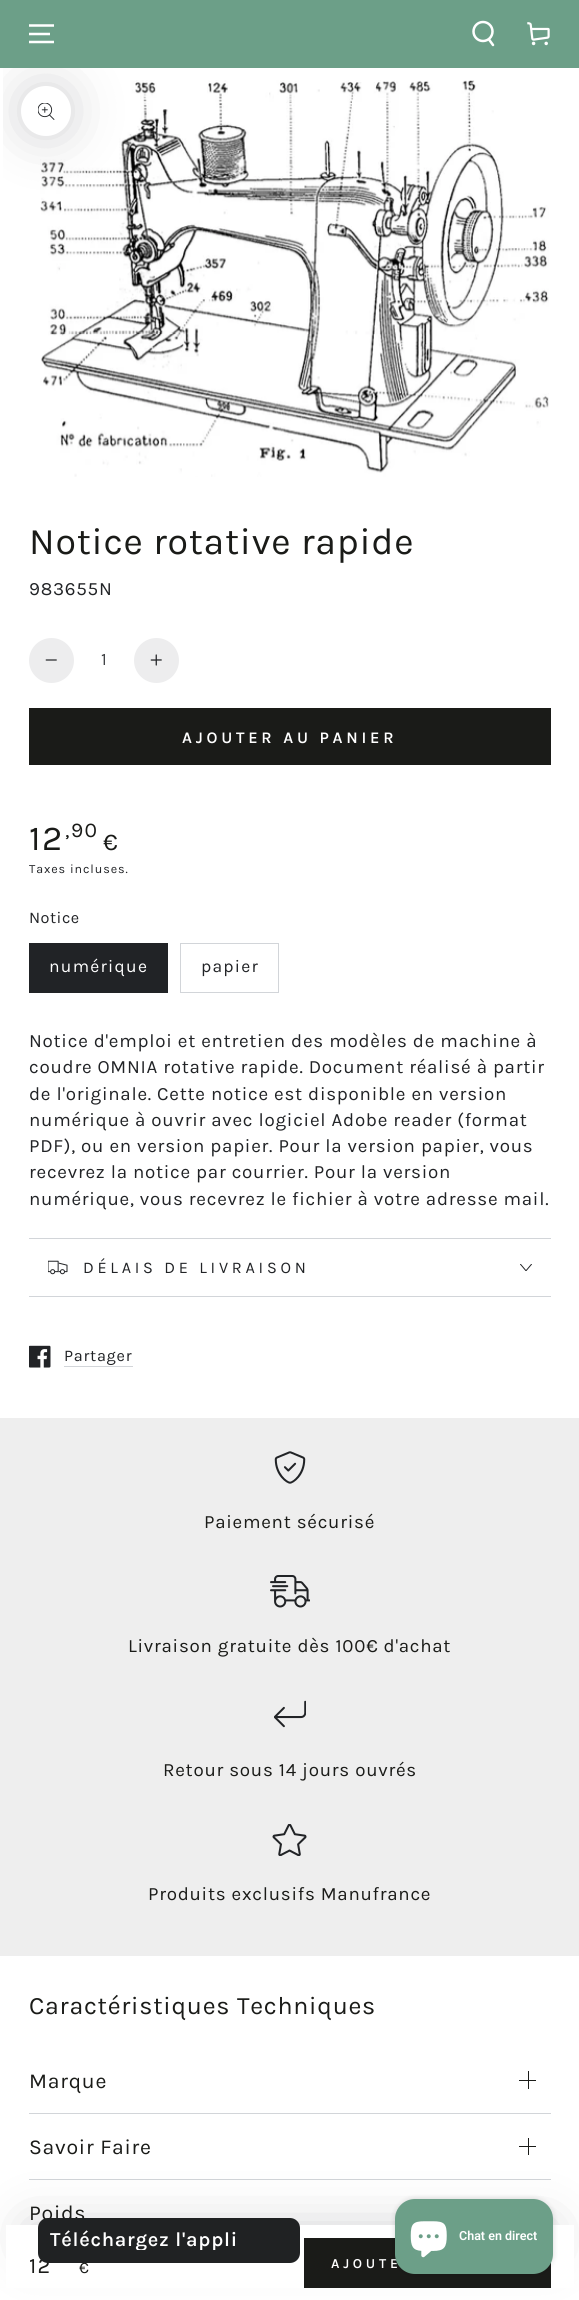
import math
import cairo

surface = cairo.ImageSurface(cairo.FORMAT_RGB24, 579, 2300)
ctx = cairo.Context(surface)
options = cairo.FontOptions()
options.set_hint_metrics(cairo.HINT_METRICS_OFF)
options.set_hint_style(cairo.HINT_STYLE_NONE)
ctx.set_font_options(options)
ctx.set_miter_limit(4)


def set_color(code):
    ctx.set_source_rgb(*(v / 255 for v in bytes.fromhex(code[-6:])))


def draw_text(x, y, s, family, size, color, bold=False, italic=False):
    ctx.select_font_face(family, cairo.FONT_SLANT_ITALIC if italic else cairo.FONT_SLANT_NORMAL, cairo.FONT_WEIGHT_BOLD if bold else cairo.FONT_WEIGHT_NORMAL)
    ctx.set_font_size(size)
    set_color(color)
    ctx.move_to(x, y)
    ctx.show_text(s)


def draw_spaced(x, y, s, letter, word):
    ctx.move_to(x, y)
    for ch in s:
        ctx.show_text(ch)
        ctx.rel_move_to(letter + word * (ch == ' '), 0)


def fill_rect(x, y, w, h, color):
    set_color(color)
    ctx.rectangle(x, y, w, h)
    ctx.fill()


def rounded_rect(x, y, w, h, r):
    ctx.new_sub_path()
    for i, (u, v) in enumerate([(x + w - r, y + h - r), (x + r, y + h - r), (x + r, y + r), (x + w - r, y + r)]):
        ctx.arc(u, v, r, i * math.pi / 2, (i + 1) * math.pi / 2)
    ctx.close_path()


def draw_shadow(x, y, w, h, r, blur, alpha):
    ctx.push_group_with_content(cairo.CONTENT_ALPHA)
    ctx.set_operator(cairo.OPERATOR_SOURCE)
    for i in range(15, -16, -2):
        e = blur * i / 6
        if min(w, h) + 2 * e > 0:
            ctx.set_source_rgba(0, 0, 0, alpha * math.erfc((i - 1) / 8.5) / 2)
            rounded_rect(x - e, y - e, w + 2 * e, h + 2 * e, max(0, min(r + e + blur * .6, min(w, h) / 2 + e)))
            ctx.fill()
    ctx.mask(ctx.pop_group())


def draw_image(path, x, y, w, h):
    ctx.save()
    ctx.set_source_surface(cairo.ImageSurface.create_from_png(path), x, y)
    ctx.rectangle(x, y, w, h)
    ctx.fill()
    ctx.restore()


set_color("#ffffff")
ctx.paint()
draw_image("assets/img3.png", 40, 80, 509, 397)
ctx.save()
ctx.rectangle(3, 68, 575, 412)
ctx.clip()
set_color("#212326")
draw_shadow(21, 86, 50, 50, 25, 25, 0.2)
ctx.restore()
fill_rect(0, 0, 579, 68, "#6c9f88")
ctx.new_path()
ctx.move_to(29, 42)
ctx.line_to(54, 42)
ctx.move_to(29, 34)
ctx.line_to(50, 34)
ctx.move_to(29, 25.5)
ctx.line_to(54, 25.5)
set_color("#ffffff")
ctx.set_line_width(2.5)
ctx.stroke()
ctx.arc(483, 31.5, 9.5, 0, 2 * math.pi)
ctx.stroke()
ctx.new_path()
ctx.move_to(489, 39.5)
ctx.line_to(493, 45)
ctx.set_line_cap(cairo.LINE_CAP_ROUND)
ctx.stroke()
draw_image("assets/img1.png", 527, 22, 23, 24)
ctx.arc(46, 111, 25, 0, 2 * math.pi)
ctx.fill()
draw_image("assets/img2.png", 38, 103, 17, 17)
ctx.select_font_face("Karla")
ctx.set_font_size(37.5)
set_color("#1a1b18")
draw_spaced(29, 554, "Notice rotative rapide", 0.75, 0)
ctx.set_font_size(18.75)
set_color("#212326")
draw_spaced(29, 595, "983655N", 0.75, 0)
set_color("#ededee")
ctx.new_path()
ctx.arc(51.5, 660.5, 22.5, 0, 2 * math.pi)
ctx.fill()
draw_image("assets/img4.png", 45, 659, 12, 2)
draw_text(101, 665, "1", "Karla", 17.5, "#424447")
set_color("#ededee")
ctx.new_path()
ctx.arc(156.5, 660.5, 22.5, 0, 2 * math.pi)
ctx.fill()
draw_image("assets/img5.png", 150, 654, 12, 12)
fill_rect(29, 708, 522, 57, "#1a1b18")
ctx.select_font_face("Karla SemiBold")
ctx.set_font_size(16.25)
set_color("#ffffff")
draw_spaced(182, 743, "AJOUTER AU PANIER", 3.75, 0)
ctx.select_font_face("Karla")
ctx.set_font_size(35)
set_color("#1a1b18")
draw_spaced(29, 850, "12", 1.5, 0)
ctx.set_font_size(21)
draw_spaced(65, 837, ",90", 1.5, 0)
ctx.set_font_size(24)
draw_spaced(103, 850, "€", 1.5, 0)
ctx.set_font_size(12.5)
set_color("#212326")
draw_spaced(29, 873, "Taxes incluses.", 0.9, 0)
ctx.set_font_size(16.25)
draw_spaced(29, 923, "Notice", 0.5, 0)
fill_rect(29, 943, 139, 50, "#212326")
ctx.set_font_size(17.5)
set_color("#ffffff")
draw_spaced(49, 972, "numérique", 1.25, 0)
ctx.rectangle(180.5, 943.5, 98, 49)
set_color("#d2d5d9")
ctx.set_line_width(1)
ctx.set_line_cap(cairo.LINE_CAP_BUTT)
ctx.stroke()
set_color("#212326")
draw_spaced(201, 972, "papier", 1.25, 0)
ctx.set_font_size(18.75)
draw_spaced(29, 1047, "Notice d'emploi et entretien des modèles de machine à", 0.75, 0)
draw_spaced(29, 1073, "coudre OMNIA rotative rapide. Document réalisé à partir", 0.75, 0)
draw_spaced(29, 1100, "de l'originale. Cette notice est disponible en version", 0.75, 0)
draw_spaced(29, 1126, "numérique à ouvrir avec logiciel Adobe reader (format", 0.75, 0)
draw_spaced(29, 1152, "PDF), ou en version papier. Pour la version papier, vous", 0.75, 0)
draw_spaced(29, 1178, "recevrez la notice par courrier. Pour la version", 0.75, 0)
draw_spaced(29, 1205, "numérique, vous recevrez le fichier à votre adresse mail.", 0.75, 0)
fill_rect(29, 1238, 522, 1, "#d2d5d9")
fill_rect(29, 1296, 522, 1, "#d2d5d9")
draw_image("assets/img6.png", 48, 1260, 20, 15)
ctx.set_font_size(16.25)
set_color("#212326")
draw_spaced(83, 1273, "DÉLAIS DE LIVRAISON", 3.75, 0)
draw_image("assets/img7.png", 520, 1264, 12, 7)
draw_image("assets/img8.png", 29, 1345, 22, 23)
fill_rect(64, 1366, 69, 1, "#d2d5d9")
set_color("#212326")
draw_spaced(64, 1361, "Partager", 0.75, 0)
fill_rect(29, 2179, 522, 1, "#d2d5d9")
fill_rect(519, 2146, 17, 1, "#1a1b18")
fill_rect(528, 2138, 1, 17, "#1a1b18")
set_color("#212326")
draw_shadow(29, 2225, 522, 25, 12.5, 25, 0.2)
fill_rect(6, 2225, 568, 63, "#ffffff")
ctx.set_font_size(22)
set_color("#1a1b18")
draw_spaced(29, 2273, "12", 1.25, 0)
ctx.set_font_size(16)
draw_spaced(79, 2273, "€", 1.25, 0)
fill_rect(304, 2238, 247, 50, "#1a1b18")
ctx.select_font_face("Karla SemiBold")
ctx.set_font_size(13.75)
set_color("#ffffff")
draw_spaced(331, 2268, "AJOUTE", 3.75, 0)
fill_rect(0, 1418, 579, 538, "#eeeeee")
draw_image("assets/img9.png", 274, 1451, 32, 33)
ctx.select_font_face("Karla")
ctx.set_font_size(18.75)
set_color("#1a1b18")
draw_spaced(204, 1528, "Paiement sécurisé", 0.75, 0)
draw_image("assets/img10.png", 270, 1575, 40, 33)
draw_spaced(128, 1652, "Livraison gratuite dès 100€ d'achat", 0.75, 0)
draw_image("assets/img11.png", 274, 1700, 32, 28)
draw_spaced(163, 1776, "Retour sous 14 jours ouvrés", 0.75, 0)
draw_image("assets/img12.png", 272, 1824, 35, 32)
draw_spaced(148, 1900, "Produits exclusifs Manufrance", 0.75, 0)
ctx.set_font_size(25)
draw_spaced(29, 2014, "Caractéristiques Techniques", 0.75, 0)
fill_rect(29, 2113, 522, 1, "#d2d5d9")
ctx.set_font_size(21.25)
set_color("#1a1b18")
draw_spaced(29, 2088, "Marque", 0.75, 0)
fill_rect(519, 2080, 17, 1, "#1a1b18")
fill_rect(528, 2071, 1, 18, "#1a1b18")
draw_spaced(29, 2154, "Savoir Faire", 0.75, 0)
draw_spaced(29, 2220, "Poids", 0.75, 0)
set_color("#202223")
rounded_rect(38, 2218, 262, 45, 10)
ctx.fill()
ctx.save()
ctx.rectangle(50, 2230, 188, 20)
ctx.clip()
ctx.select_font_face("Karla SemiBold")
ctx.set_font_size(20)
set_color("#ffffff")
draw_spaced(50, 2246, "Téléchargez l'appli", 0.75, 0)
ctx.restore()
set_color("#000000")
draw_shadow(395, 2199, 158, 75, 20, 3, 0.15)
set_color("#6c9f88")
rounded_rect(395, 2199, 158, 75, 20)
ctx.fill()
draw_image("assets/img13.png", 410, 2221, 37, 37)
draw_text(459, 2240, "Chat en direct", "Roboto SemiBold", 12.5, "#ffffff")
surface.write_to_png("output.png")
